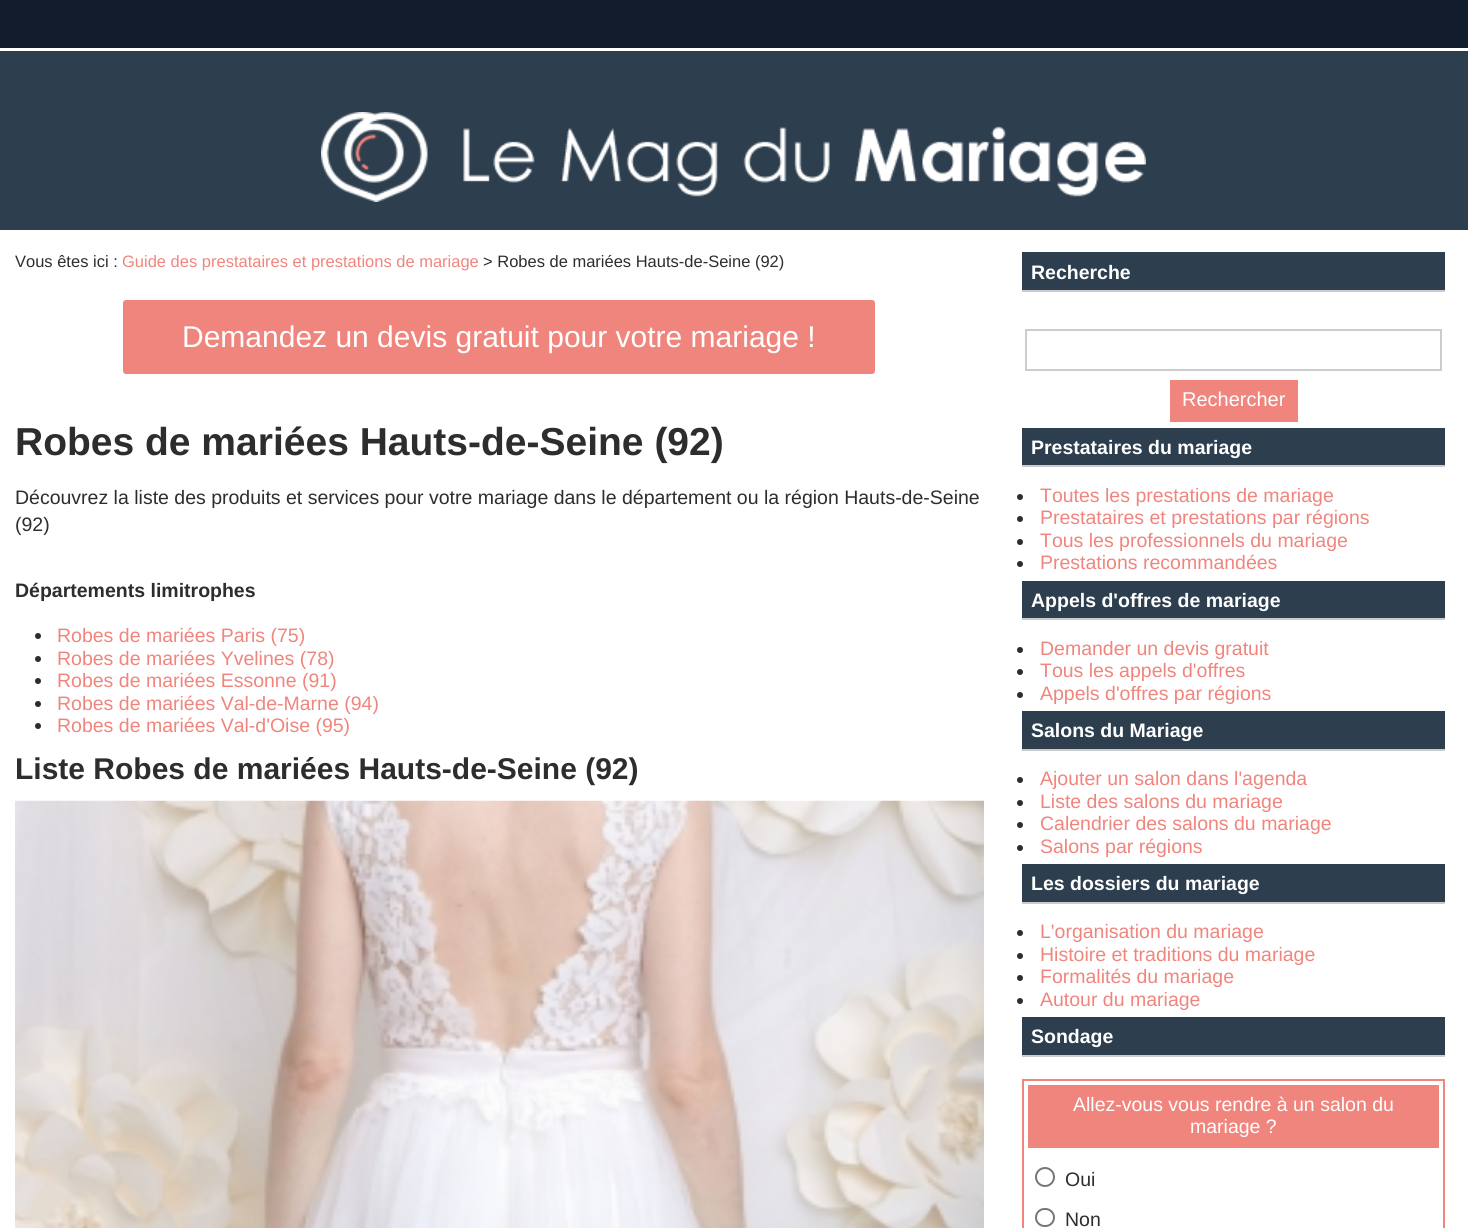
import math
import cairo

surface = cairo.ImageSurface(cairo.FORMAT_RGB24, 1468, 1228)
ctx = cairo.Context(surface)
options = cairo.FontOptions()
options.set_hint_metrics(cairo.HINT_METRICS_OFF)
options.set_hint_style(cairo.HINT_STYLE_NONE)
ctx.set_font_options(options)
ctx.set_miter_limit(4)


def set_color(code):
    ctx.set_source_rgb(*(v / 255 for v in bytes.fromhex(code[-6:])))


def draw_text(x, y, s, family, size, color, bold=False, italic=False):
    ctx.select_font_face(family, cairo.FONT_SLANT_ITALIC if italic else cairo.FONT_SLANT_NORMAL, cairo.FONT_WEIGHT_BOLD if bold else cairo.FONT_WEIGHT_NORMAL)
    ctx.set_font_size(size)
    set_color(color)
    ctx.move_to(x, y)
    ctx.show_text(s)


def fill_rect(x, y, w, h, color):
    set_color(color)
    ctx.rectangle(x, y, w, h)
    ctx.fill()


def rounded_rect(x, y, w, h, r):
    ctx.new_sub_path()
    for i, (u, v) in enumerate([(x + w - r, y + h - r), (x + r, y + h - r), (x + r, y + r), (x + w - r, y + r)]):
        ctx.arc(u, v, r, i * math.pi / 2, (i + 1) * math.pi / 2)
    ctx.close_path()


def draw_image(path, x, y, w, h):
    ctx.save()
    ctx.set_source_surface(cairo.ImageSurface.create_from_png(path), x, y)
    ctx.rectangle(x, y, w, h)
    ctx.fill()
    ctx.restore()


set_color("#ffffff")
ctx.paint()
fill_rect(0, 0, 1468, 48, "#121c2d")
fill_rect(0, 51, 1468, 179, "#2d3e4e")
draw_image("assets/img1.png", 321, 112, 825, 90)
draw_text(15, 267, "Vous êtes ici :", "Liberation Sans", 16.5, "#2d2d2d")
draw_text(122, 267, "Guide des prestataires et prestations de mariage", "Liberation Sans", 16.5, "#f0857d")
draw_text(483, 267, "> Robes de mariées Hauts-de-Seine (92)", "Liberation Sans", 16.5, "#2d2d2d")
set_color("#f0857d")
rounded_rect(123, 300, 752, 74, 3)
ctx.fill()
draw_text(182, 347, "Demandez un devis gratuit pour votre mariage !", "Liberation Sans", 30, "#ffffff")
draw_text(15, 455, "Robes de mariées Hauts-de-Seine (92)", "Liberation Sans", 39, "#2d2d2d", bold=True)
draw_text(15, 504, "Découvrez la liste des produits et services pour votre mariage dans le département ou la région Hauts-de-Seine", "Liberation Sans", 19.5, "#2d2d2d")
draw_text(15, 531, "(92)", "Liberation Sans", 19.5, "#2d2d2d")
draw_text(15, 597, "Départements limitrophes", "Liberation Sans", 19.5, "#2d2d2d", bold=True)
ctx.new_path()
ctx.arc(38, 636, 3, 0, 2 * math.pi)
ctx.fill()
draw_text(57, 642, "Robes de mariées Paris (75)", "Liberation Sans", 19.5, "#f0857d")
set_color("#2d2d2d")
ctx.new_path()
ctx.arc(38, 659, 3, 0, 2 * math.pi)
ctx.fill()
draw_text(57, 665, "Robes de mariées Yvelines (78)", "Liberation Sans", 19.5, "#f0857d")
set_color("#2d2d2d")
ctx.new_path()
ctx.arc(38, 681, 3, 0, 2 * math.pi)
ctx.fill()
draw_text(57, 687, "Robes de mariées Essonne (91)", "Liberation Sans", 19.5, "#f0857d")
set_color("#2d2d2d")
ctx.new_path()
ctx.arc(38, 704, 3, 0, 2 * math.pi)
ctx.fill()
draw_text(57, 710, "Robes de mariées Val-de-Marne (94)", "Liberation Sans", 19.5, "#f0857d")
set_color("#2d2d2d")
ctx.new_path()
ctx.arc(38, 726, 3, 0, 2 * math.pi)
ctx.fill()
draw_text(57, 732, "Robes de mariées Val-d'Oise (95)", "Liberation Sans", 19.5, "#f0857d")
draw_text(15, 779, "Liste Robes de mariées Hauts-de-Seine (92)", "Liberation Sans", 30, "#2d2d2d", bold=True)
draw_image("assets/img2.png", 15, 800, 969, 428)
fill_rect(1022, 252, 423, 38, "#2d3e4e")
fill_rect(1022, 290, 423, 2, "#cccccc")
draw_text(1031, 279, "Recherche", "Liberation Sans", 19.5, "#ffffff", bold=True)
ctx.rectangle(1026, 330, 415, 40)
set_color("#cccccc")
ctx.stroke()
fill_rect(1170, 380, 128, 42, "#f0857d")
draw_text(1182, 406, "Rechercher", "Liberation Sans", 20, "#ffffff")
fill_rect(1022, 428, 423, 37, "#2d3e4e")
fill_rect(1022, 465, 423, 2, "#cccccc")
draw_text(1031, 454, "Prestataires du mariage", "Liberation Sans", 19.5, "#ffffff", bold=True)
set_color("#2d2d2d")
ctx.new_path()
ctx.arc(1020, 497, 3, 0, 2 * math.pi)
ctx.fill()
draw_text(1040, 502, "Toutes les prestations de mariage", "Liberation Sans", 19.5, "#f0857d")
set_color("#2d2d2d")
ctx.new_path()
ctx.arc(1020, 519, 3, 0, 2 * math.pi)
ctx.fill()
draw_text(1040, 524, "Prestataires et prestations par régions", "Liberation Sans", 19.5, "#f0857d")
set_color("#2d2d2d")
ctx.new_path()
ctx.arc(1020, 542, 3, 0, 2 * math.pi)
ctx.fill()
draw_text(1040, 547, "Tous les professionnels du mariage", "Liberation Sans", 19.5, "#f0857d")
set_color("#2d2d2d")
ctx.new_path()
ctx.arc(1020, 564, 3, 0, 2 * math.pi)
ctx.fill()
draw_text(1040, 569, "Prestations recommandées", "Liberation Sans", 19.5, "#f0857d")
fill_rect(1022, 581, 423, 37, "#2d3e4e")
fill_rect(1022, 618, 423, 2, "#cccccc")
draw_text(1031, 607, "Appels d'offres de mariage", "Liberation Sans", 19.5, "#ffffff", bold=True)
set_color("#2d2d2d")
ctx.new_path()
ctx.arc(1020, 650, 3, 0, 2 * math.pi)
ctx.fill()
draw_text(1040, 655, "Demander un devis gratuit", "Liberation Sans", 19.5, "#f0857d")
set_color("#2d2d2d")
ctx.new_path()
ctx.arc(1020, 672, 3, 0, 2 * math.pi)
ctx.fill()
draw_text(1040, 677, "Tous les appels d'offres", "Liberation Sans", 19.5, "#f0857d")
set_color("#2d2d2d")
ctx.new_path()
ctx.arc(1020, 695, 3, 0, 2 * math.pi)
ctx.fill()
draw_text(1040, 700, "Appels d'offres par régions", "Liberation Sans", 19.5, "#f0857d")
fill_rect(1022, 711, 423, 38, "#2d3e4e")
fill_rect(1022, 749, 423, 2, "#cccccc")
draw_text(1031, 737, "Salons du Mariage", "Liberation Sans", 19.5, "#ffffff", bold=True)
set_color("#2d2d2d")
ctx.new_path()
ctx.arc(1020, 780, 3, 0, 2 * math.pi)
ctx.fill()
draw_text(1040, 785, "Ajouter un salon dans l'agenda", "Liberation Sans", 19.5, "#f0857d")
set_color("#2d2d2d")
ctx.new_path()
ctx.arc(1020, 803, 3, 0, 2 * math.pi)
ctx.fill()
draw_text(1040, 808, "Liste des salons du mariage", "Liberation Sans", 19.5, "#f0857d")
set_color("#2d2d2d")
ctx.new_path()
ctx.arc(1020, 825, 3, 0, 2 * math.pi)
ctx.fill()
draw_text(1040, 830, "Calendrier des salons du mariage", "Liberation Sans", 19.5, "#f0857d")
set_color("#2d2d2d")
ctx.new_path()
ctx.arc(1020, 848, 3, 0, 2 * math.pi)
ctx.fill()
draw_text(1040, 853, "Salons par régions", "Liberation Sans", 19.5, "#f0857d")
fill_rect(1022, 864, 423, 38, "#2d3e4e")
fill_rect(1022, 902, 423, 2, "#cccccc")
draw_text(1031, 890, "Les dossiers du mariage", "Liberation Sans", 19.5, "#ffffff", bold=True)
set_color("#2d2d2d")
ctx.new_path()
ctx.arc(1020, 933, 3, 0, 2 * math.pi)
ctx.fill()
draw_text(1040, 938, "L'organisation du mariage", "Liberation Sans", 19.5, "#f0857d")
set_color("#2d2d2d")
ctx.new_path()
ctx.arc(1020, 956, 3, 0, 2 * math.pi)
ctx.fill()
draw_text(1040, 961, "Histoire et traditions du mariage", "Liberation Sans", 19.5, "#f0857d")
set_color("#2d2d2d")
ctx.new_path()
ctx.arc(1020, 978, 3, 0, 2 * math.pi)
ctx.fill()
draw_text(1040, 983, "Formalités du mariage", "Liberation Sans", 19.5, "#f0857d")
set_color("#2d2d2d")
ctx.new_path()
ctx.arc(1020, 1001, 3, 0, 2 * math.pi)
ctx.fill()
draw_text(1040, 1006, "Autour du mariage", "Liberation Sans", 19.5, "#f0857d")
fill_rect(1022, 1017, 423, 38, "#2d3e4e")
fill_rect(1022, 1055, 423, 2, "#cccccc")
draw_text(1031, 1043, "Sondage", "Liberation Sans", 19.5, "#ffffff", bold=True)
ctx.rectangle(1023, 1080, 421, 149)
set_color("#f0857d")
ctx.stroke()
fill_rect(1028, 1085, 411, 63, "#f0857d")
draw_text(1073, 1111, "Allez-vous vous rendre à un salon du", "Liberation Sans", 19.5, "#ffffff")
draw_text(1190, 1133, "mariage ?", "Liberation Sans", 19.5, "#ffffff")
ctx.new_path()
ctx.arc(1045, 1177, 9, 0, 2 * math.pi)
set_color("#767676")
ctx.stroke()
draw_text(1065, 1186, "Oui", "Liberation Sans", 19.5, "#2d2d2d")
rounded_rect(1036, 1209, 18, 17, 8.5)
set_color("#767676")
ctx.stroke()
draw_text(1065, 1226, "Non", "Liberation Sans", 19.5, "#2d2d2d")
surface.write_to_png("output.png")
